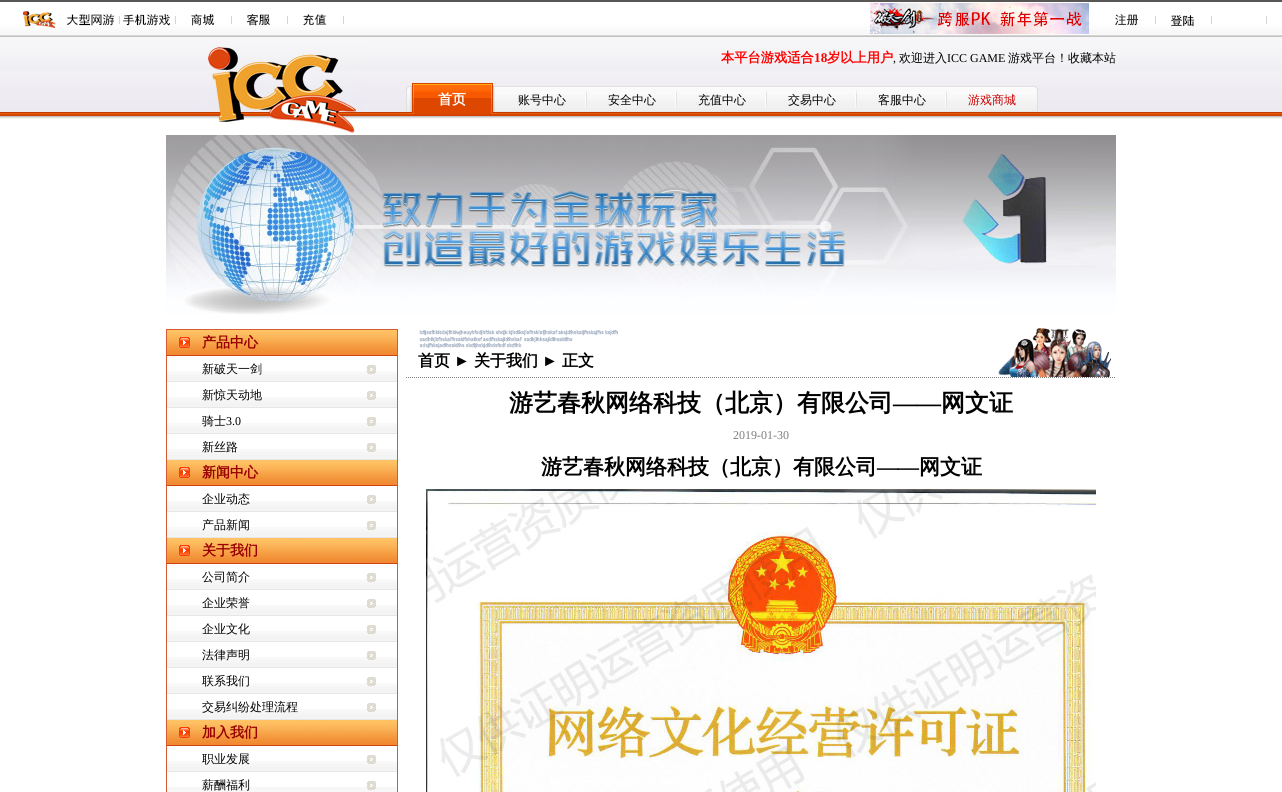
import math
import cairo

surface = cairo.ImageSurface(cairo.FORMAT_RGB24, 1282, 792)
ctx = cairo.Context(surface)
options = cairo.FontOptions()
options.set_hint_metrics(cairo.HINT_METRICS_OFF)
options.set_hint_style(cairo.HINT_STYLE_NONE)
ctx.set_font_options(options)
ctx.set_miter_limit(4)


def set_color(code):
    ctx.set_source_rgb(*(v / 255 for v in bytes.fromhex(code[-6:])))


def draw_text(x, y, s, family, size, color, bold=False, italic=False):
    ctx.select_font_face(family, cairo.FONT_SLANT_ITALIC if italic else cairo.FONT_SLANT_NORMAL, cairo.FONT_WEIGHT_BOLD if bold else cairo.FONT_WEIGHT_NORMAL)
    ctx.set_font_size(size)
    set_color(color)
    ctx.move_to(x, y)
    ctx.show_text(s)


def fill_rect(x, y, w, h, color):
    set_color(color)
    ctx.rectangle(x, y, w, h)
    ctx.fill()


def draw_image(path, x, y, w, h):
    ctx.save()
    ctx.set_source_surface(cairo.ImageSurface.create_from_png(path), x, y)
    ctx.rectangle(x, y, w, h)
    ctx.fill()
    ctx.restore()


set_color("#ffffff")
ctx.paint()
draw_image("assets/img1.png", 0, 0, 1282, 37)
draw_image("assets/img2.png", 23, 11, 33, 17)
fill_rect(119, 16, 1, 8, "#d5d5d5")
draw_image("assets/img3.png", 67, 14, 48, 12)
fill_rect(175, 16, 1, 8, "#d5d5d5")
draw_image("assets/img4.png", 123, 14, 48, 12)
fill_rect(231, 16, 1, 8, "#d5d5d5")
draw_image("assets/img5.png", 191, 14, 24, 12)
fill_rect(287, 16, 1, 8, "#d5d5d5")
draw_image("assets/img6.png", 247, 14, 23, 12)
fill_rect(343, 16, 1, 8, "#d5d5d5")
draw_image("assets/img7.png", 303, 14, 24, 12)
draw_image("assets/img8.png", 870, 3, 219, 31)
fill_rect(1155, 16, 1, 8, "#d5d5d5")
draw_image("assets/img9.png", 1115, 14, 24, 12)
fill_rect(1211, 16, 1, 8, "#d5d5d5")
draw_image("assets/img10.png", 1171, 15, 24, 12)
fill_rect(1266, 16, 1, 8, "#d5d5d5")
draw_image("assets/img11.png", 0, 37, 1282, 82)
draw_image("assets/img12.png", 206, 45, 158, 88)
draw_text(721, 62, "本平台游戏适合", "WenQuanYi Zen Hei", 13.25, "#ff0000", bold=True)
draw_text(814, 62, "18", "Liberation Serif", 13.25, "#ff0000", bold=True)
draw_text(827, 62, "岁以上用户", "WenQuanYi Zen Hei", 13.25, "#ff0000", bold=True)
draw_text(893, 62, ",", "Liberation Serif", 12, "#000000")
draw_text(899, 62, "欢迎进入", "WenQuanYi Zen Hei Medium", 12, "#000000")
draw_text(947, 62, "ICC GAME", "Liberation Serif", 12, "#000000")
draw_text(1008, 62, "游戏平台！收藏本站", "WenQuanYi Zen Hei Medium", 12, "#000000")
draw_image("assets/img13.png", 496, 86, 542, 27)
draw_image("assets/img14.png", 406, 83, 90, 31)
draw_text(438, 104, "首页", "WenQuanYi Zen Hei", 14, "#ffffff", bold=True)
draw_image("assets/img15.png", 585, 90, 2, 18)
draw_text(518, 104, "账号中心", "WenQuanYi Zen Hei Medium", 12, "#000000")
draw_image("assets/img15.png", 675, 90, 2, 18)
draw_text(608, 104, "安全中心", "WenQuanYi Zen Hei Medium", 12, "#000000")
draw_image("assets/img15.png", 765, 90, 2, 18)
draw_text(698, 104, "充值中心", "WenQuanYi Zen Hei Medium", 12, "#000000")
draw_image("assets/img15.png", 855, 90, 2, 18)
draw_text(788, 104, "交易中心", "WenQuanYi Zen Hei Medium", 12, "#000000")
draw_image("assets/img15.png", 945, 90, 2, 18)
draw_text(878, 104, "客服中心", "WenQuanYi Zen Hei Medium", 12, "#000000")
draw_image("assets/img16.png", 1035, 86, 3, 26)
draw_text(968, 104, "游戏商城", "WenQuanYi Zen Hei Medium", 12, "#cc0000")
draw_image("assets/img17.png", 166, 135, 950, 180)
ctx.rectangle(166.5, 329.5, 231, 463)
set_color("#d65b31")
ctx.set_line_width(1)
ctx.stroke()
draw_image("assets/img18.png", 167, 330, 230, 26)
draw_image("assets/img19.png", 179, 337, 11, 11)
draw_text(202, 347, "产品中心", "WenQuanYi Zen Hei", 14, "#990000", bold=True)
draw_image("assets/img20.png", 167, 371, 230, 11)
draw_image("assets/img21.png", 367, 365, 9, 9)
draw_text(202, 373, "新破天一剑", "WenQuanYi Zen Hei Medium", 12, "#000000")
draw_image("assets/img20.png", 167, 397, 230, 11)
draw_image("assets/img21.png", 367, 391, 9, 9)
draw_text(202, 399, "新惊天动地", "WenQuanYi Zen Hei Medium", 12, "#000000")
draw_image("assets/img20.png", 167, 423, 230, 11)
draw_image("assets/img21.png", 367, 417, 9, 9)
draw_text(202, 425, "骑士", "WenQuanYi Zen Hei Medium", 12, "#000000")
draw_text(226, 425, "3.0", "Liberation Serif", 12, "#000000")
draw_image("assets/img20.png", 167, 449, 230, 11)
draw_image("assets/img21.png", 367, 443, 9, 9)
draw_text(202, 451, "新丝路", "WenQuanYi Zen Hei Medium", 12, "#000000")
draw_image("assets/img18.png", 167, 460, 230, 26)
draw_image("assets/img19.png", 179, 467, 11, 11)
draw_text(202, 477, "新闻中心", "WenQuanYi Zen Hei", 14, "#990000", bold=True)
draw_image("assets/img20.png", 167, 501, 230, 11)
draw_image("assets/img21.png", 367, 495, 9, 9)
draw_text(202, 503, "企业动态", "WenQuanYi Zen Hei Medium", 12, "#000000")
draw_image("assets/img20.png", 167, 527, 230, 11)
draw_image("assets/img21.png", 367, 521, 9, 9)
draw_text(202, 529, "产品新闻", "WenQuanYi Zen Hei Medium", 12, "#000000")
draw_image("assets/img18.png", 167, 538, 230, 26)
draw_image("assets/img19.png", 179, 545, 11, 11)
draw_text(202, 555, "关于我们", "WenQuanYi Zen Hei", 14, "#990000", bold=True)
draw_image("assets/img20.png", 167, 579, 230, 11)
draw_image("assets/img21.png", 367, 573, 9, 9)
draw_text(202, 581, "公司简介", "WenQuanYi Zen Hei Medium", 12, "#000000")
draw_image("assets/img20.png", 167, 605, 230, 11)
draw_image("assets/img21.png", 367, 599, 9, 9)
draw_text(202, 607, "企业荣誉", "WenQuanYi Zen Hei Medium", 12, "#000000")
draw_image("assets/img20.png", 167, 631, 230, 11)
draw_image("assets/img21.png", 367, 625, 9, 9)
draw_text(202, 633, "企业文化", "WenQuanYi Zen Hei Medium", 12, "#000000")
draw_image("assets/img20.png", 167, 657, 230, 11)
draw_image("assets/img21.png", 367, 651, 9, 9)
draw_text(202, 659, "法律声明", "WenQuanYi Zen Hei Medium", 12, "#000000")
draw_image("assets/img20.png", 167, 683, 230, 11)
draw_image("assets/img21.png", 367, 677, 9, 9)
draw_text(202, 685, "联系我们", "WenQuanYi Zen Hei Medium", 12, "#000000")
draw_image("assets/img20.png", 167, 709, 230, 11)
draw_image("assets/img21.png", 367, 703, 9, 9)
draw_text(202, 711, "交易纠纷处理流程", "WenQuanYi Zen Hei Medium", 12, "#000000")
draw_image("assets/img18.png", 167, 720, 230, 26)
draw_image("assets/img19.png", 179, 727, 11, 11)
draw_text(202, 737, "加入我们", "WenQuanYi Zen Hei", 14, "#990000", bold=True)
draw_image("assets/img20.png", 167, 761, 230, 11)
draw_image("assets/img21.png", 367, 755, 9, 9)
draw_text(202, 763, "职业发展", "WenQuanYi Zen Hei Medium", 12, "#000000")
fill_rect(167, 787, 230, 5, "#f7f7f7")
draw_image("assets/img21.png", 367, 781, 9, 9)
draw_text(202, 789, "薪酬福利", "WenQuanYi Zen Hei Medium", 12, "#000000")
draw_image("assets/img22.png", 419, 330, 199, 18)
draw_image("assets/img23.png", 997, 328, 114, 49)
ctx.new_path()
ctx.move_to(406, 377.5)
ctx.line_to(1116, 377.5)
set_color("#808080")
ctx.set_dash([1, 1])
ctx.stroke()
draw_text(418, 366, "首页", "WenQuanYi Zen Hei", 16, "#000000", bold=True)
draw_text(454, 366, "►", "Liberation Serif", 16, "#000000", bold=True)
draw_text(474, 366, "关于我们", "WenQuanYi Zen Hei", 16, "#000000", bold=True)
draw_text(542, 366, "►", "Liberation Serif", 16, "#000000", bold=True)
draw_text(562, 366, "正文", "WenQuanYi Zen Hei", 16, "#000000", bold=True)
draw_text(509, 411, "游艺春秋网络科技（北京）有限公司", "WenQuanYi Zen Hei", 24, "#000000", bold=True)
draw_text(893, 411, "——", "Liberation Serif", 24, "#000000", bold=True)
draw_text(941, 411, "网文证", "WenQuanYi Zen Hei", 24, "#000000", bold=True)
draw_text(733, 439, "2019-01-30", "Liberation Serif", 12, "#7d7c7c")
draw_text(541, 474, "游艺春秋网络科技（北京）有限公司", "WenQuanYi Zen Hei", 21, "#000000", bold=True)
draw_text(877, 474, "——", "Liberation Serif", 21, "#000000", bold=True)
draw_text(919, 474, "网文证", "WenQuanYi Zen Hei", 21, "#000000", bold=True)
draw_image("assets/img24.png", 426, 489, 670, 303)
surface.write_to_png("output.png")
